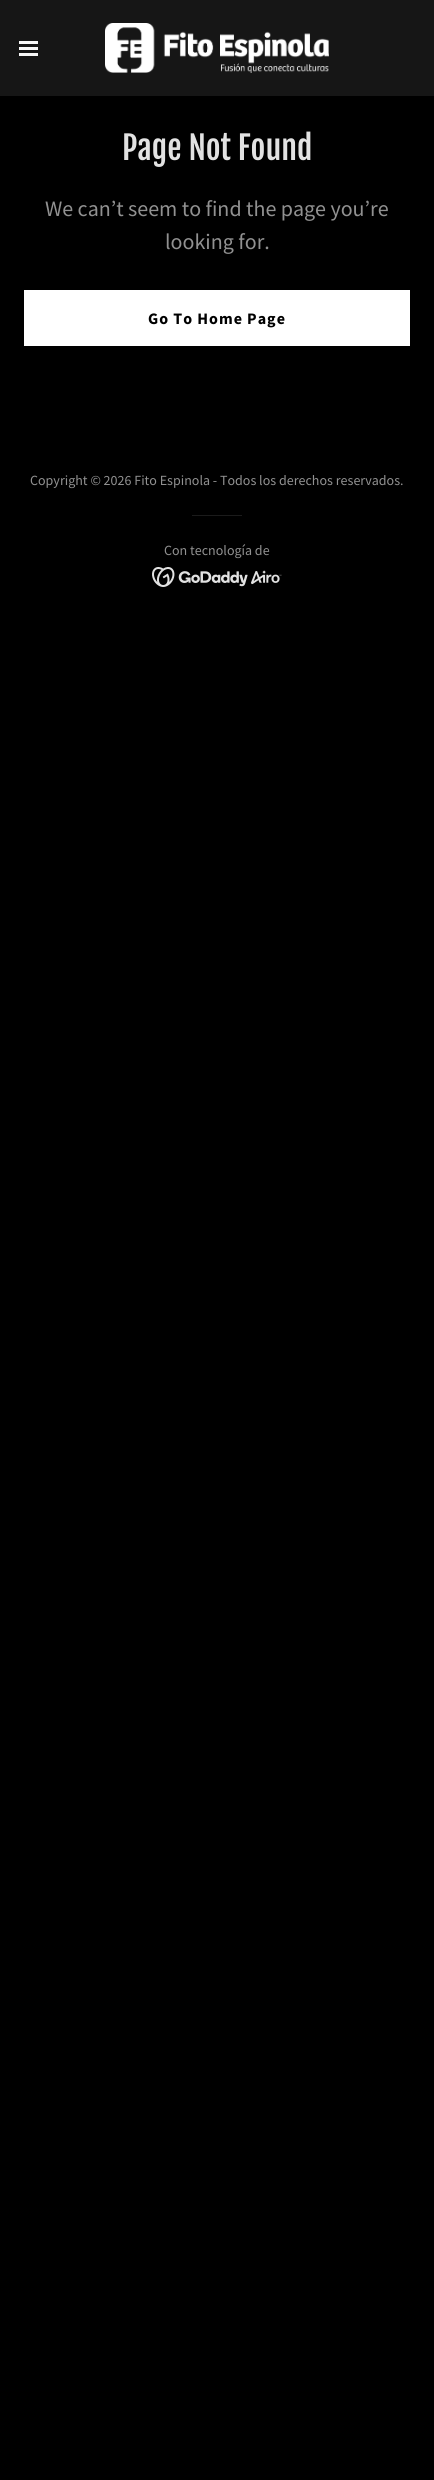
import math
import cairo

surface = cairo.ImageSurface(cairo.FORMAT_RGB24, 434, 2480)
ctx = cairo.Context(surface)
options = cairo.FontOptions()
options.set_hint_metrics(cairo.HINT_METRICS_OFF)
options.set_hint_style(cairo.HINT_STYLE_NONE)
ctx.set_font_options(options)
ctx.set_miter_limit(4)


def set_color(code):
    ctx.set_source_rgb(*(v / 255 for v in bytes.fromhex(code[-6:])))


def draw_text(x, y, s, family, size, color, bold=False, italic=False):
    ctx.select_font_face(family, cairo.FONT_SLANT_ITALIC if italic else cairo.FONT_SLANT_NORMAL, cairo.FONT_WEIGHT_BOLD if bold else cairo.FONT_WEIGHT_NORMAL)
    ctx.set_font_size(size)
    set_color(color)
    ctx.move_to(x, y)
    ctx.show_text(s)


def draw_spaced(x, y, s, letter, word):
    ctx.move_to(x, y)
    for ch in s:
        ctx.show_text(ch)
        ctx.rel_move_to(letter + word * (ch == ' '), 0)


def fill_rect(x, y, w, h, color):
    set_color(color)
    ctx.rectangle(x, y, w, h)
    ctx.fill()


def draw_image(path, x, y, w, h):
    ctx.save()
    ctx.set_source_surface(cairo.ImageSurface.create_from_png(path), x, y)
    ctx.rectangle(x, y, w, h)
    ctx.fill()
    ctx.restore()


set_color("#000000")
ctx.paint()
fill_rect(0, 0, 434, 96, "#161616")
fill_rect(19, 41, 19, 3, "#f7f7f7")
fill_rect(19, 47, 19, 3, "#f7f7f7")
fill_rect(19, 53, 19, 3, "#f7f7f7")
draw_image("assets/img1.png", 105, 23, 224, 50)
draw_text(122, 160, "Page Not Found", "Fjalla One", 32, "#e2e2e2")
draw_text(45, 216, "We can’t seem to find the page you’re", "Source Sans Pro", 22, "#919191")
draw_text(165, 249, "looking for.", "Source Sans Pro", 22, "#919191")
fill_rect(24, 290, 386, 56, "#ffffff")
ctx.select_font_face("Source Sans Pro", cairo.FONT_SLANT_NORMAL, cairo.FONT_WEIGHT_BOLD)
ctx.set_font_size(16)
set_color("#000000")
draw_spaced(148, 324, "Go To Home Page", 1, 0)
draw_text(30, 485, "Copyright © 2026 Fito Espinola - Todos los derechos reservados.", "Source Sans Pro", 14, "#919191")
fill_rect(192, 515, 50, 1, "#1b1b1b")
draw_text(164, 555, "Con tecnología de", "Source Sans Pro", 14, "#919191")
draw_image("assets/img2.png", 152, 567, 130, 20)
surface.write_to_png("output.png")
